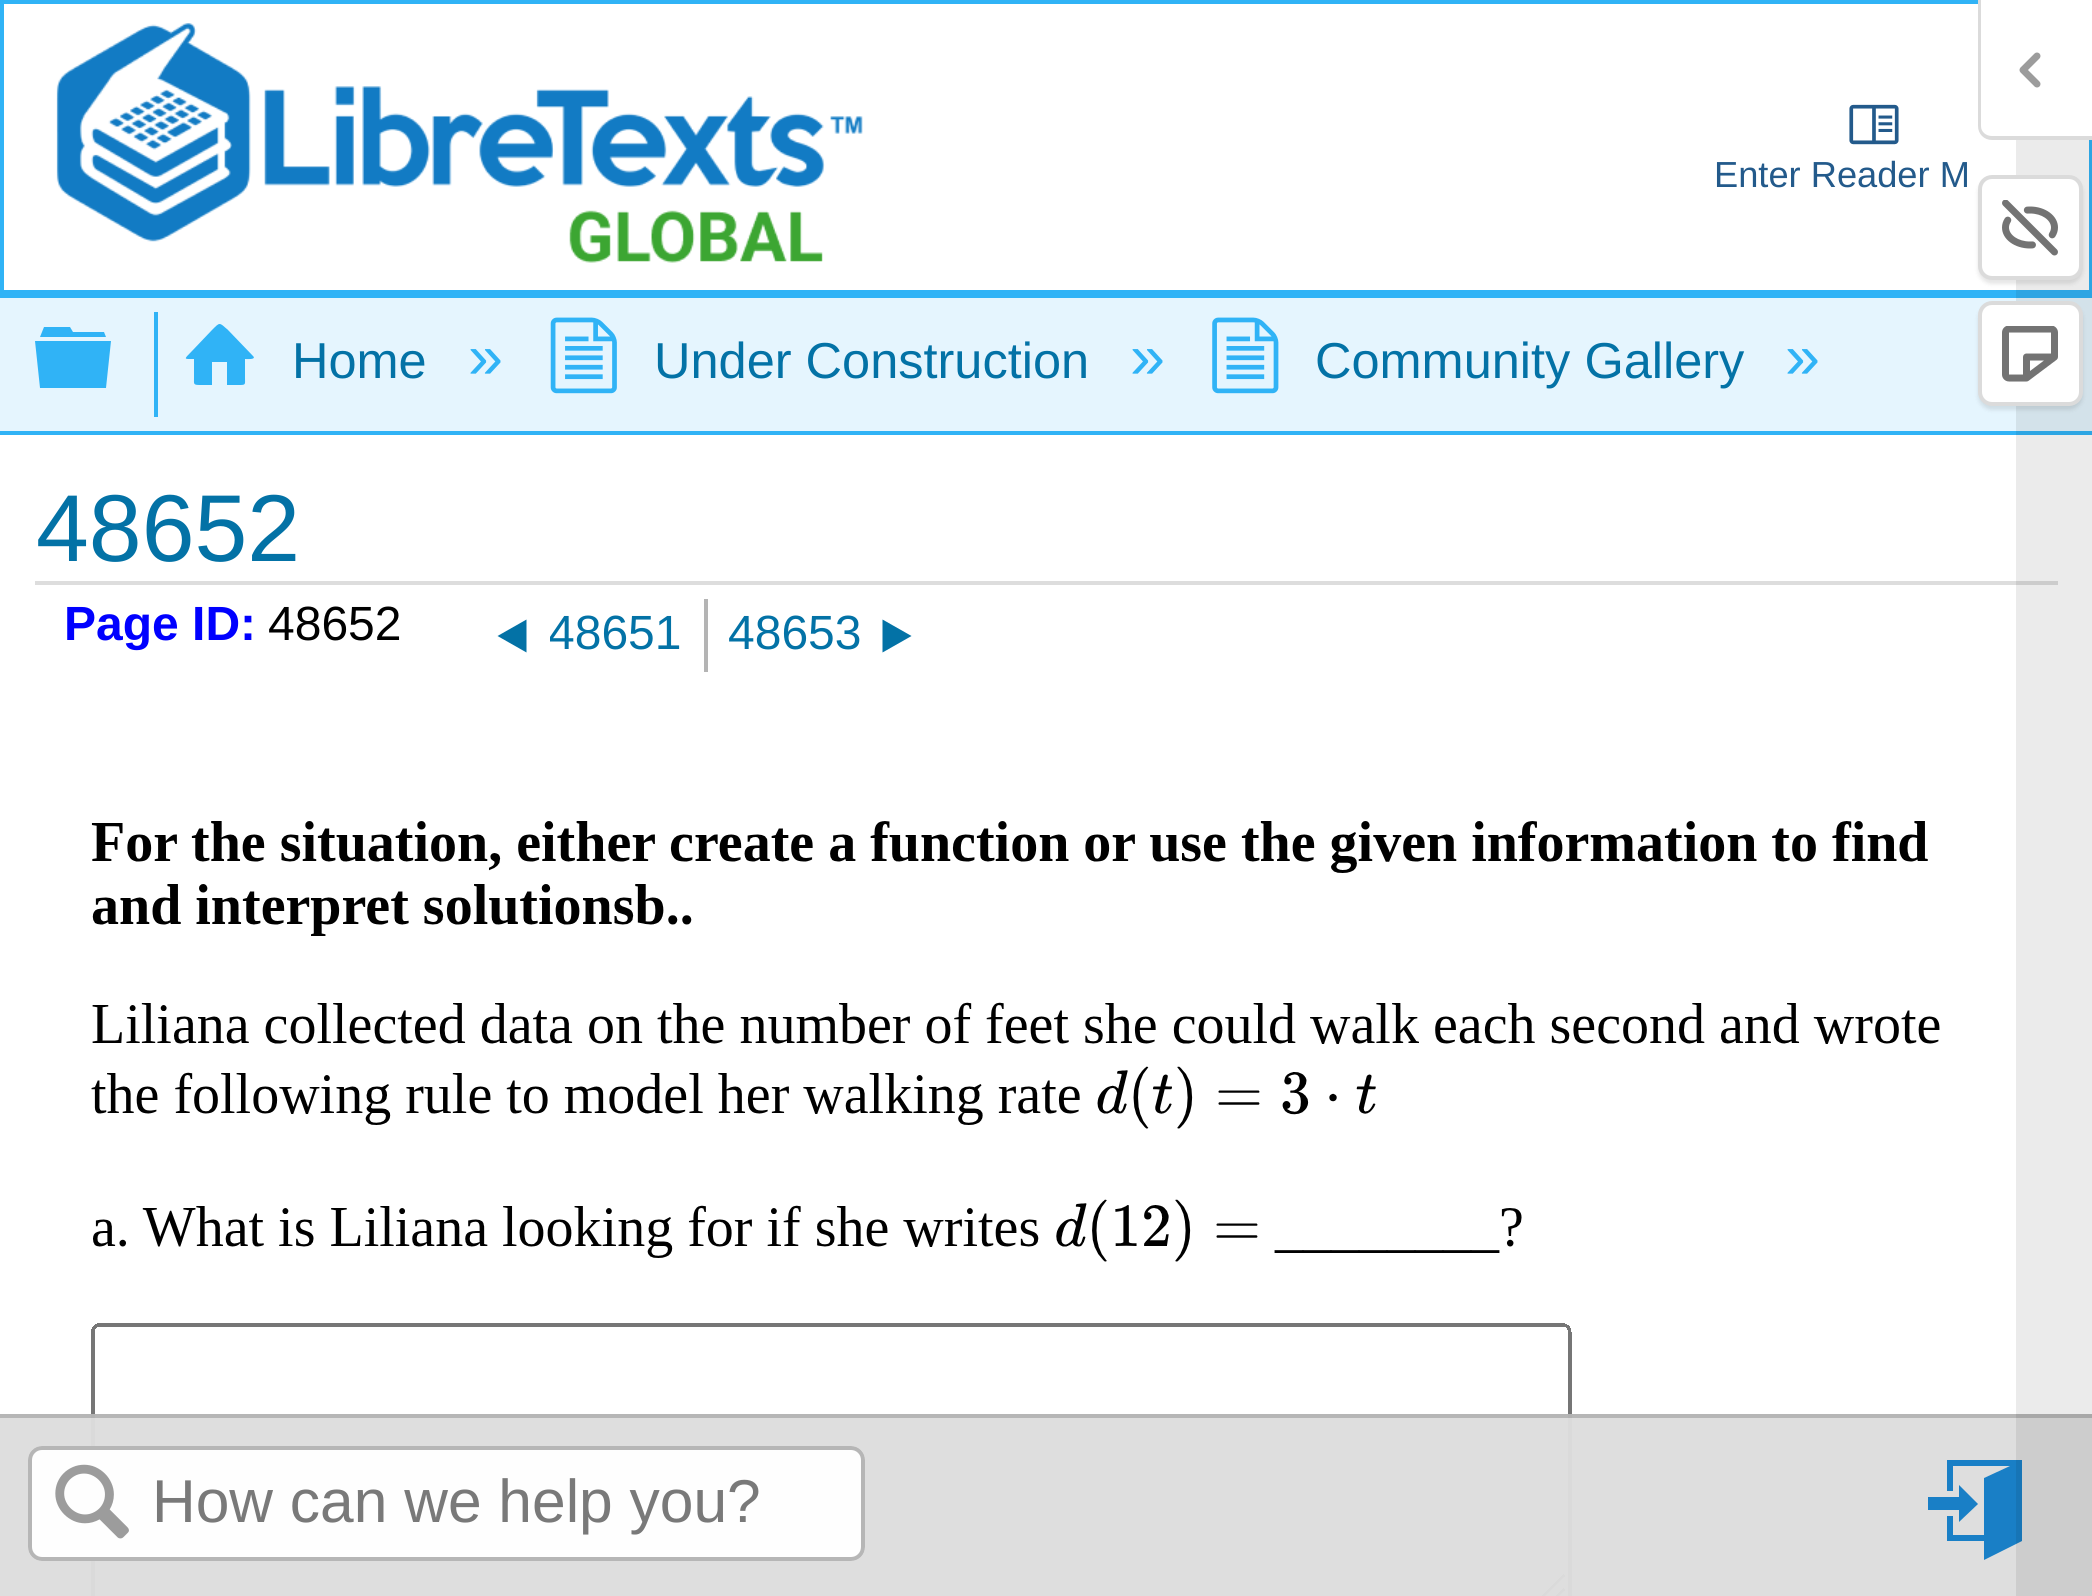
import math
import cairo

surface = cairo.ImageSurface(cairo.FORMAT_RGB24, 2092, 1596)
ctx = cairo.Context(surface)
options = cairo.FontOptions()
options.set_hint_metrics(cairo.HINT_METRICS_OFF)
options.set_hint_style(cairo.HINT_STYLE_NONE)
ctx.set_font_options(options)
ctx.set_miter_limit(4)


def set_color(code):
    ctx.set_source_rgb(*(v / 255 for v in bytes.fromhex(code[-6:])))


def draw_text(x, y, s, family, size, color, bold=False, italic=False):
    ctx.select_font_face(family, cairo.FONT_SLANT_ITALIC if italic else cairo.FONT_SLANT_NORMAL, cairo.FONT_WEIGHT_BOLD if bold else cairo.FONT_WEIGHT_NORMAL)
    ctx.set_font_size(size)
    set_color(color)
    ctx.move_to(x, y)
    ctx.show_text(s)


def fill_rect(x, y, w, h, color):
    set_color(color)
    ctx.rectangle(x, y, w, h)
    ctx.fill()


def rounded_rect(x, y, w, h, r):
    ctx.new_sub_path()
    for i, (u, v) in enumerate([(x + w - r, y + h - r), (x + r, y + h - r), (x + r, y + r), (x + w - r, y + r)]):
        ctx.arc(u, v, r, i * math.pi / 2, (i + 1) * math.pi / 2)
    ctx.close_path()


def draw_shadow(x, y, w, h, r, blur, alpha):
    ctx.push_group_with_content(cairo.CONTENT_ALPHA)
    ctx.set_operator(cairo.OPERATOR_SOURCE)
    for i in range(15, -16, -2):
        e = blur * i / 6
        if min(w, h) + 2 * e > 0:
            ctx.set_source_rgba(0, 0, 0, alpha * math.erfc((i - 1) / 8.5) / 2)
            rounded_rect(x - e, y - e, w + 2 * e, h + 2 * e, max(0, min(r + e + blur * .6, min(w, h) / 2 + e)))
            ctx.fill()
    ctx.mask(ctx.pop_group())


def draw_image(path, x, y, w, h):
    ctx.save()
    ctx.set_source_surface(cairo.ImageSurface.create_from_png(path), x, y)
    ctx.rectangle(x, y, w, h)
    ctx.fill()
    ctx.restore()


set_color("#ffffff")
ctx.paint()
ctx.rectangle(2, 2, 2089, 290)
set_color("#30b3f6")
ctx.set_line_width(4)
ctx.stroke()
draw_image("assets/img1.png", 56, 23, 807, 240)
draw_image("assets/img2.png", 1849, 104, 50, 41)
draw_text(1714, 187, "Enter Reader M", "Liberation Sans", 36.25, "#235a8b")
fill_rect(0, 298, 2092, 133, "#e5f5fe")
fill_rect(0, 294, 2092, 4, "#30b3f6")
fill_rect(0, 431, 2092, 4, "#30b3f6")
ctx.new_path()
ctx.move_to(35, 341)
ctx.line_to(111, 341)
ctx.line_to(106, 388)
ctx.line_to(40, 388)
ctx.close_path()
ctx.move_to(104, 332)
ctx.line_to(106, 337)
ctx.line_to(40, 337)
ctx.line_to(44, 327)
ctx.line_to(70, 327)
ctx.line_to(73, 332)
ctx.close_path()
ctx.fill()
fill_rect(154, 312, 4, 105, "#30b3f6")
draw_text(292, 378, "Home", "Liberation Sans", 50.5, "#0372a6")
set_color("#30b3f6")
ctx.new_path()
ctx.move_to(253, 356)
ctx.line_to(228, 330)
ctx.curve_to(219, 322, 220, 322, 212, 330)
ctx.line_to(192, 351)
ctx.curve_to(183, 360, 184, 359, 194, 359)
ctx.line_to(194, 378)
ctx.curve_to(194, 384, 193, 385, 200, 385)
ctx.line_to(212, 385)
ctx.line_to(212, 362)
ctx.line_to(227, 362)
ctx.line_to(227, 385)
ctx.line_to(240, 385)
ctx.curve_to(246, 385, 245, 384, 245, 378)
ctx.line_to(245, 359)
ctx.curve_to(246, 359, 257, 360, 253, 356)
ctx.close_path()
ctx.fill()
draw_text(468, 378, "»", "Liberation Sans", 63, "#30b3f6")
draw_image("assets/img3.png", 550, 317, 67, 77)
draw_text(654, 378, "Under Construction", "Liberation Sans", 50.5, "#0372a6")
draw_text(1130, 378, "»", "Liberation Sans", 63, "#30b3f6")
draw_image("assets/img4.png", 1212, 317, 67, 77)
draw_text(1315, 378, "Community Gallery", "Liberation Sans", 50.5, "#0372a6")
draw_text(1785, 378, "»", "Liberation Sans", 63, "#30b3f6")
draw_image("assets/img6.png", 91, 821, 1849, 775)
ctx.set_source_rgba(0.867, 0.867, 0.867, 0.97)
ctx.rectangle(0, 1418, 2092, 178)
ctx.fill()
ctx.set_source_rgba(0.706, 0.706, 0.706, 0.97)
ctx.rectangle(0, 1414, 2092, 4)
ctx.fill()
ctx.set_source_rgba(1, 1, 1, 0.97)
rounded_rect(28, 1446, 837, 115, 14)
ctx.fill()
rounded_rect(30, 1448, 833, 111, 12)
ctx.set_source_rgba(0.706, 0.706, 0.706, 0.97)
ctx.stroke()
draw_image("assets/img5.png", 55, 1464, 74, 75)
draw_text(152, 1522, "How can we help you?", "Liberation Sans", 60.5, "#797979")
set_color("#197fc6")
ctx.new_path()
ctx.move_to(1959, 1510)
ctx.line_to(1928, 1510)
ctx.line_to(1928, 1497)
ctx.line_to(1959, 1497)
ctx.line_to(1959, 1485)
ctx.line_to(1978, 1504)
ctx.line_to(1959, 1522)
ctx.close_path()
ctx.move_to(2022, 1460)
ctx.line_to(2022, 1541)
ctx.line_to(1984, 1560)
ctx.line_to(1984, 1541)
ctx.line_to(1947, 1541)
ctx.line_to(1947, 1516)
ctx.line_to(1953, 1516)
ctx.line_to(1953, 1535)
ctx.line_to(1984, 1535)
ctx.line_to(1984, 1478)
ctx.line_to(2010, 1466)
ctx.line_to(1953, 1466)
ctx.line_to(1953, 1491)
ctx.line_to(1947, 1491)
ctx.line_to(1947, 1460)
ctx.close_path()
ctx.fill()
fill_rect(35, 581, 2023, 4, "#dddddd")
draw_text(36, 561, "48652", "Liberation Sans", 95, "#0372a6")
draw_text(64, 640, "Page ID:", "Liberation Sans", 48, "#0000ff", bold=True)
draw_text(268, 640, "48652", "Liberation Sans", 48, "#000000")
fill_rect(704, 599, 4, 73, "#b4b4b4")
set_color("#0372a6")
ctx.new_path()
ctx.move_to(526.5, 619.5)
ctx.line_to(526.5, 652.5)
ctx.line_to(497.5, 636)
ctx.close_path()
ctx.fill()
ctx.save()
ctx.rectangle(550, 606, 133, 59)
ctx.clip()
draw_text(548, 649, "48651", "Liberation Sans", 48, "#0372a6")
ctx.restore()
draw_text(728, 649, "48653", "Liberation Sans", 48, "#0372a6")
ctx.new_path()
ctx.move_to(882.5, 619.5)
ctx.line_to(882.5, 652.5)
ctx.line_to(911.5, 636)
ctx.close_path()
ctx.fill()
ctx.set_source_rgba(0, 0, 0, 0.08)
ctx.rectangle(2016, 140, 76, 1456)
ctx.fill()
set_color("#ffffff")
ctx.new_path()
ctx.move_to(1981, 0)
ctx.line_to(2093, 0)
ctx.line_to(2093, 137)
ctx.line_to(1992, 137)
ctx.curve_to(1986, 137, 1981, 132, 1981, 126)
ctx.close_path()
ctx.fill()
set_color("#dbdbdb")
ctx.set_fill_rule(cairo.FILL_RULE_EVEN_ODD)
ctx.new_path()
ctx.move_to(1978, 0)
ctx.line_to(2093, 0)
ctx.line_to(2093, 140)
ctx.line_to(1992, 140)
ctx.curve_to(1984, 140, 1978, 134, 1978, 126)
ctx.close_path()
ctx.move_to(1981, 0)
ctx.line_to(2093, 0)
ctx.line_to(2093, 136)
ctx.line_to(1992, 136)
ctx.curve_to(1986, 136, 1981, 132, 1981, 126)
ctx.close_path()
ctx.fill()
draw_image("assets/img7.png", 2019, 52, 22, 36)
set_color("#000000")
draw_shadow(1978, 179, 105, 105, 14, 2, 0.1)
set_color("#ffffff")
rounded_rect(1980, 177, 101, 101, 12)
ctx.fill_preserve()
set_color("#dbdbdb")
ctx.stroke()
draw_image("assets/img8.png", 2002, 200, 56, 56)
set_color("#000000")
draw_shadow(1978, 305, 105, 105, 14, 2, 0.1)
set_color("#ffffff")
rounded_rect(1980, 303, 101, 101, 12)
ctx.fill_preserve()
set_color("#dbdbdb")
ctx.stroke()
draw_image("assets/img9.png", 2002, 326, 56, 56)
surface.write_to_png("output.png")
